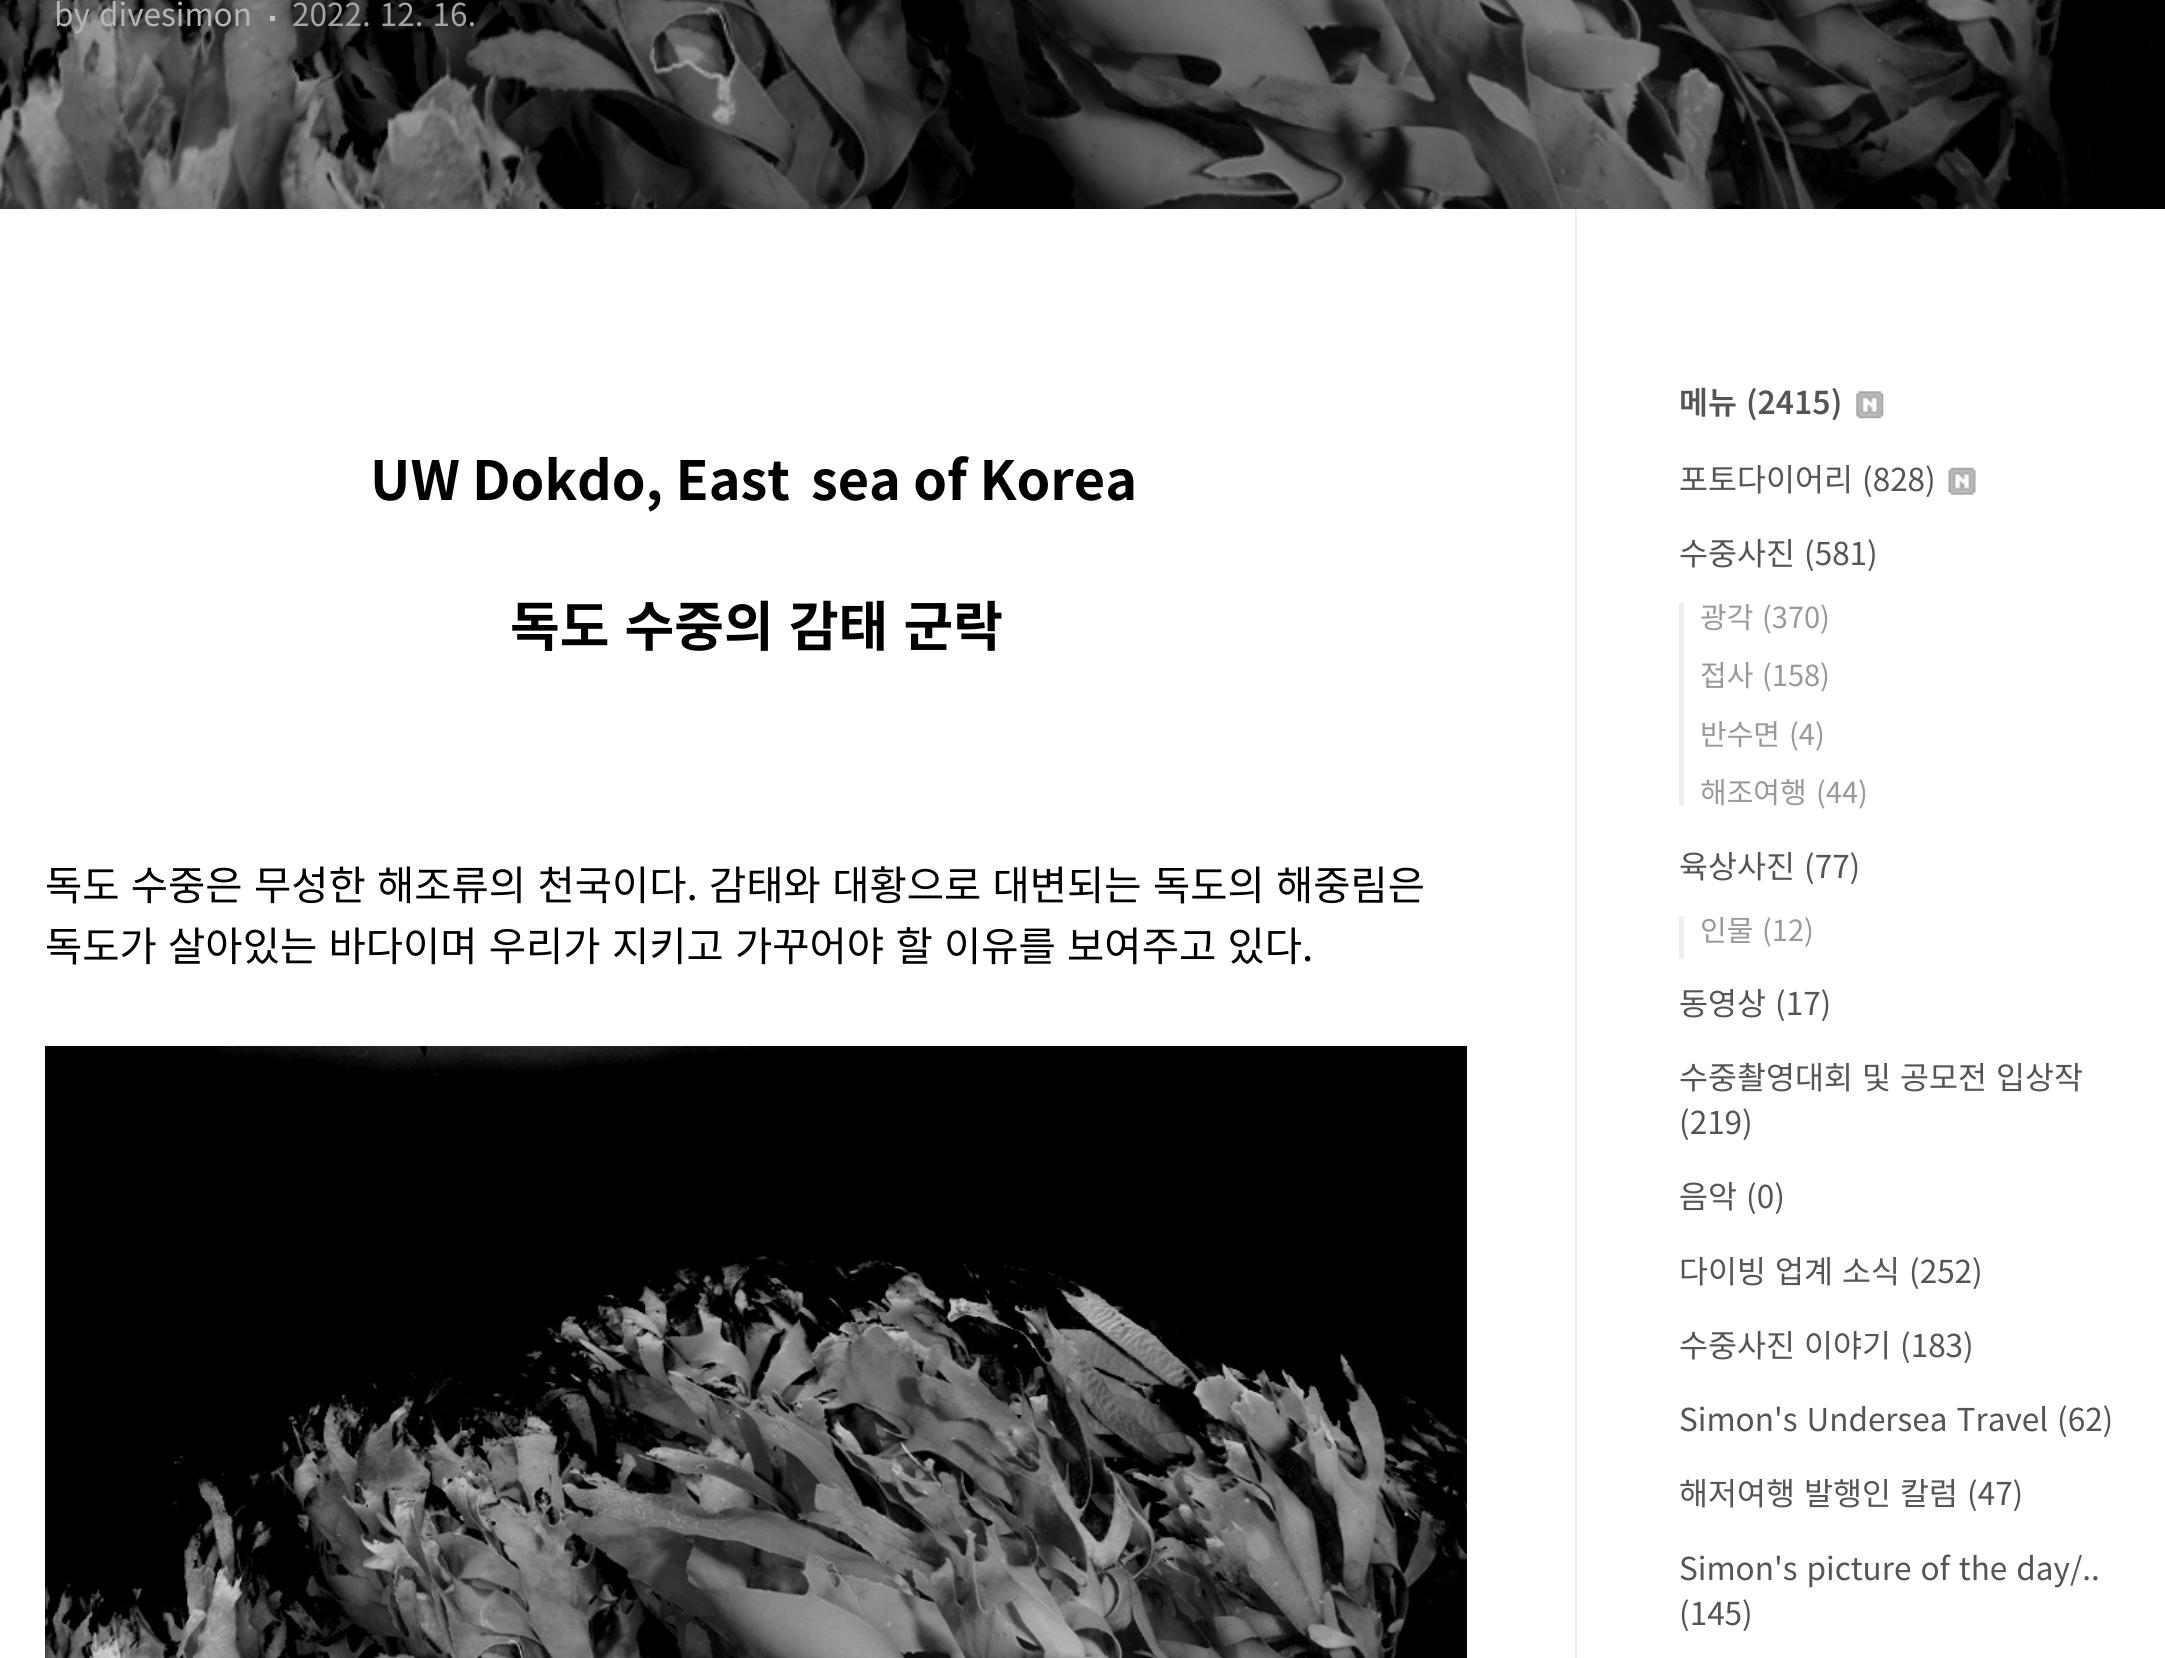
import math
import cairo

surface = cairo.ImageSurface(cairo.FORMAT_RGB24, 2165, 1658)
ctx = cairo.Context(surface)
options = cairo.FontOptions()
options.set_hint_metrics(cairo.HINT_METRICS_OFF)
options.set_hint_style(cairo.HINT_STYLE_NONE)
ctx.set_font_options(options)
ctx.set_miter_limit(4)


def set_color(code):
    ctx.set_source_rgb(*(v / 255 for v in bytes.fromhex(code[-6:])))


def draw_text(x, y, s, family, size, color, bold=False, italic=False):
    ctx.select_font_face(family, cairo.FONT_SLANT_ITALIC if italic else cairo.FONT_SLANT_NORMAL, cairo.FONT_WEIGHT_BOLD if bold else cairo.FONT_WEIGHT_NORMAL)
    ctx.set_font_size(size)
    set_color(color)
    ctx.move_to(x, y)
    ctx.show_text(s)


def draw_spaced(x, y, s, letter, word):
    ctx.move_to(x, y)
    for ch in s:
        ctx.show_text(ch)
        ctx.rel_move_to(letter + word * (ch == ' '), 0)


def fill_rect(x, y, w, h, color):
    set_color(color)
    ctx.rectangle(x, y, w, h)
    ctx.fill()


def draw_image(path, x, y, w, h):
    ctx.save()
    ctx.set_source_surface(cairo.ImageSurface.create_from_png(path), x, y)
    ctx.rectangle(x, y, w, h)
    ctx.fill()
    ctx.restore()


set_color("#ffffff")
ctx.paint()
draw_image("assets/img1.png", 0, 0, 2165, 209)
ctx.select_font_face("Noto Sans KR")
ctx.set_font_size(31.5)
set_color("#b6b6b6")
draw_spaced(54, 26, "by divesimon", 0, 2)
ctx.set_source_rgba(1, 1, 1, 0.6)
ctx.rectangle(270, 16, 5, 5)
ctx.fill()
set_color("#a5a5a5")
draw_spaced(292, 26, "2022. 12. 16.", 0, 2)
draw_text(370, 500, "UW Dokdo, East", "Noto Sans KR", 54, "#000000", bold=True)
draw_text(811, 500, "sea of Korea", "Noto Sans KR", 54, "#000000", bold=True)
draw_spaced(510, 646, "독도 수중의 감태 군락", 0, 3)
ctx.select_font_face("Noto Sans KR")
ctx.set_font_size(40.5)
draw_spaced(45, 900, "독도 수중은 무성한 해조류의 천국이다. 감태와 대황으로 대변되는 독도의 해중림은", 0, 2.25)
draw_spaced(45, 961, "독도가 살아있는 바다이며 우리가 지키고 가꾸어야 할 이유를 보여주고 있다.", 0, 2.25)
draw_image("assets/img2.png", 45, 1046, 1422, 612)
fill_rect(1575, 209, 2, 1449, "#eeeeee")
draw_text(1679, 414, "메뉴", "Noto Sans KR SemiBold", 31.5, "#555555")
draw_text(1746, 414, "(2415)", "Noto Sans KR SemiBold", 31.5, "#555555")
draw_image("assets/img3.png", 1856, 391, 28, 28)
draw_text(1679, 491, "포토다이어리", "Noto Sans KR", 31.5, "#555555")
draw_text(1862, 491, "(828)", "Noto Sans KR", 31.5, "#555555")
draw_image("assets/img4.png", 1948, 467, 28, 28)
draw_text(1679, 565, "수중사진", "Noto Sans KR", 31.5, "#555555")
draw_text(1804, 565, "(581)", "Noto Sans KR", 31.5, "#555555")
fill_rect(1679, 603, 5, 203, "#eeeeee")
draw_text(1700, 628, "광각", "Noto Sans KR", 29, "#999999")
draw_text(1762, 628, "(370)", "Noto Sans KR", 29, "#999999")
draw_text(1700, 686, "접사", "Noto Sans KR", 29, "#999999")
draw_text(1762, 686, "(158)", "Noto Sans KR", 29, "#999999")
draw_text(1700, 745, "반수면", "Noto Sans KR", 29, "#999999")
draw_text(1789, 745, "(4)", "Noto Sans KR", 29, "#999999")
draw_text(1700, 803, "해조여행", "Noto Sans KR", 29, "#999999")
draw_text(1816, 803, "(44)", "Noto Sans KR", 29, "#999999")
draw_text(1679, 878, "육상사진", "Noto Sans KR", 31.5, "#555555")
draw_text(1804, 878, "(77)", "Noto Sans KR", 31.5, "#555555")
fill_rect(1679, 916, 5, 43, "#eeeeee")
draw_text(1700, 941, "인물", "Noto Sans KR", 29, "#999999")
draw_text(1762, 941, "(12)", "Noto Sans KR", 29, "#999999")
draw_text(1679, 1015, "동영상", "Noto Sans KR", 31.5, "#555555")
draw_text(1775, 1015, "(17)", "Noto Sans KR", 31.5, "#555555")
draw_spaced(1679, 1089, "수중촬영대회 및 공모전 입상작", 0, 2)
draw_text(1679, 1134, "(219)", "Noto Sans KR", 31.5, "#555555")
draw_text(1679, 1208, "음악", "Noto Sans KR", 31.5, "#555555")
draw_text(1746, 1208, "(0)", "Noto Sans KR", 31.5, "#555555")
draw_spaced(1679, 1283, "다이빙 업계 소식", 0, 2)
draw_text(1909, 1283, "(252)", "Noto Sans KR", 31.5, "#555555")
draw_spaced(1679, 1357, "수중사진 이야기", 0, 2)
draw_text(1900, 1357, "(183)", "Noto Sans KR", 31.5, "#555555")
draw_spaced(1679, 1431, "Simon's Undersea Travel", 0, 2)
draw_text(2057, 1431, "(62)", "Noto Sans KR", 31.5, "#555555")
draw_spaced(1679, 1505, "해저여행 발행인 칼럼", 0, 2)
draw_text(1967, 1505, "(47)", "Noto Sans KR", 31.5, "#555555")
draw_spaced(1679, 1580, "Simon's picture of the day/..", 0, 2)
draw_text(1679, 1625, "(145)", "Noto Sans KR", 31.5, "#555555")
surface.write_to_png("output.png")
